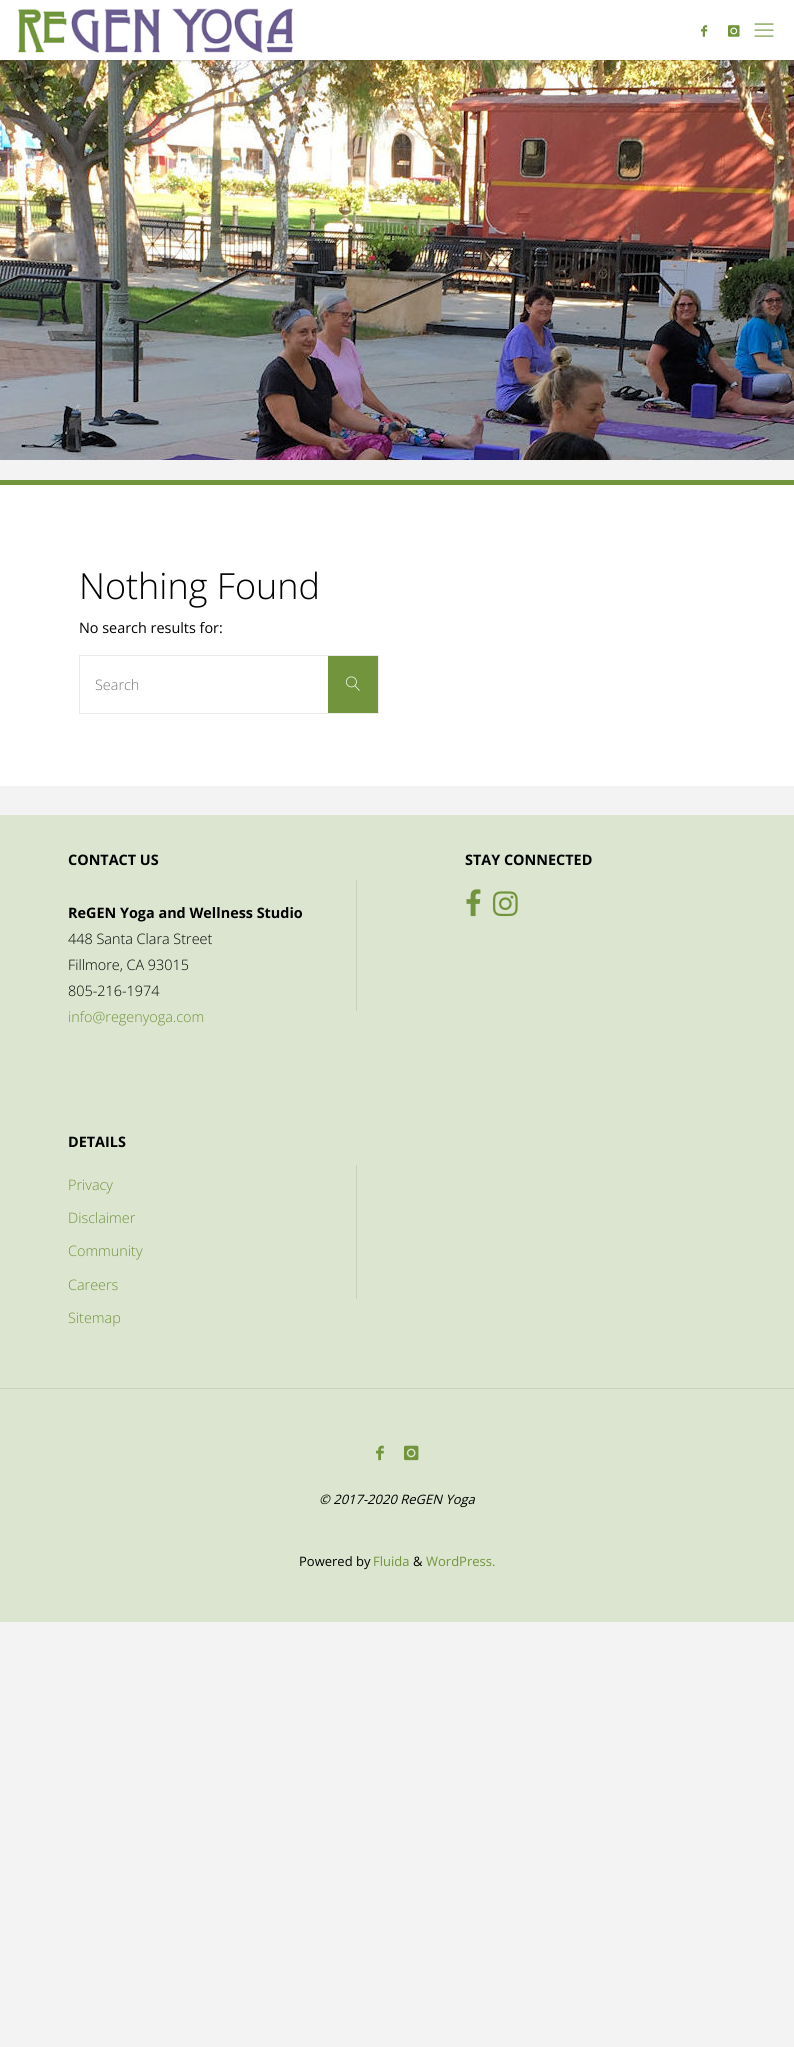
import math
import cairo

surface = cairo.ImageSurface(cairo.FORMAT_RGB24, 794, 2047)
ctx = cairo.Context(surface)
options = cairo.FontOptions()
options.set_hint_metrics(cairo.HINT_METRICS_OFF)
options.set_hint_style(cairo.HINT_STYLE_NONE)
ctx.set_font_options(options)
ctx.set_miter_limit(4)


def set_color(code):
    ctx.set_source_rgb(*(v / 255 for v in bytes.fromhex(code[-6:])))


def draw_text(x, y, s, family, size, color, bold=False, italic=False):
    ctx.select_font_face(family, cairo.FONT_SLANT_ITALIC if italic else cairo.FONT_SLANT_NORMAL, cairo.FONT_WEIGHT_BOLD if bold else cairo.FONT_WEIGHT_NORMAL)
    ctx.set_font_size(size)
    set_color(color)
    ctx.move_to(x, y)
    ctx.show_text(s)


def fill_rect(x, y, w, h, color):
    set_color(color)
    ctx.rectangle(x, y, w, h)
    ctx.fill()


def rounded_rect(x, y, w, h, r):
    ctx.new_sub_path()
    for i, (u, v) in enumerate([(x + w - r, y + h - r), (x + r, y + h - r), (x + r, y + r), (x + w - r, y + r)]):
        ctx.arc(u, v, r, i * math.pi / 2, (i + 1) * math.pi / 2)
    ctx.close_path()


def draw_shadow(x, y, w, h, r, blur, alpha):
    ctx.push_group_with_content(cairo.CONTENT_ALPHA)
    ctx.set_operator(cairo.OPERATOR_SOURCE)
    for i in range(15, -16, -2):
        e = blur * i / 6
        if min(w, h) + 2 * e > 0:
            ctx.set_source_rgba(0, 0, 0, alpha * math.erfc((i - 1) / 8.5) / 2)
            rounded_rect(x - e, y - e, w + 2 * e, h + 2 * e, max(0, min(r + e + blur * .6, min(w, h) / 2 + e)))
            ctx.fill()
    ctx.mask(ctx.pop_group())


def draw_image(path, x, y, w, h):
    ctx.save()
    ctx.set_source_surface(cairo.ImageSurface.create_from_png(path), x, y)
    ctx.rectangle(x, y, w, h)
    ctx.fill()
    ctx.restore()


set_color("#f3f3f3")
ctx.paint()
draw_image("assets/img5.png", 0, 60, 794, 400)
set_color("#000000")
draw_shadow(0, 0, 794, 60, 0, 1.5, 0.2)
fill_rect(0, 0, 794, 60, "#ffffff")
draw_image("assets/img1.png", 17, 8, 276, 45)
draw_image("assets/img2.png", 701, 25, 7, 12)
draw_image("assets/img3.png", 728, 25, 12, 12)
draw_image("assets/img4.png", 754, 23, 20, 14)
fill_rect(0, 485, 794, 301, "#ffffff")
fill_rect(0, 480, 794, 5, "#71943d")
draw_text(79, 599, "Nothing Found", "Open Sans Light", 36, "#000000")
draw_text(79, 633, "No search results for:", "Open Sans", 14.4, "#000000")
ctx.rectangle(79.5, 655.5, 299, 58)
set_color("#ebebeb")
ctx.set_line_width(1)
ctx.stroke()
fill_rect(328, 656, 50, 57, "#71943d")
draw_text(95, 690, "Search", "Open Sans Light", 14.4, "#757575")
draw_image("assets/img6.png", 346, 676, 14, 15)
fill_rect(0, 815, 794, 573, "#dce5cf")
draw_text(68, 865, "CONTACT US", "Open Sans", 14.4, "#000000", bold=True)
draw_text(68, 918, "ReGEN Yoga and Wellness Studio", "Open Sans", 14.4, "#000000", bold=True)
draw_text(68, 944, "448 Santa Clara Street", "Open Sans Light", 14.4, "#000000")
draw_text(68, 970, "Fillmore, CA 93015", "Open Sans Light", 14.4, "#000000")
draw_text(68, 996, "805-216-1974", "Open Sans Light", 14.4, "#000000")
draw_text(68, 1022, "info@regenyoga.com", "Open Sans Light", 14.4, "#71943d")
fill_rect(356, 880, 1, 131, "#c8d1bb")
draw_text(465, 865, "STAY CONNECTED", "Open Sans", 14.4, "#000000", bold=True)
draw_image("assets/img7.png", 466, 889, 15, 28)
draw_image("assets/img8.png", 493, 891, 25, 26)
draw_text(68, 1147, "DETAILS", "Open Sans", 14.4, "#000000", bold=True)
draw_text(68, 1190, "Privacy", "Open Sans Light", 14.4, "#71943d")
draw_text(68, 1223, "Disclaimer", "Open Sans Light", 14.4, "#71943d")
draw_text(68, 1256, "Community", "Open Sans Light", 14.4, "#71943d")
draw_text(68, 1290, "Careers", "Open Sans Light", 14.4, "#71943d")
draw_text(68, 1323, "Sitemap", "Open Sans Light", 14.4, "#71943d")
fill_rect(356, 1165, 1, 134, "#c8d1bb")
fill_rect(0, 1389, 794, 233, "#dce5cf")
fill_rect(0, 1388, 794, 1, "#c8d1bb")
draw_image("assets/img9.png", 376, 1445, 8, 16)
draw_image("assets/img10.png", 404, 1445, 15, 16)
draw_text(319, 1504, "© 2017-2020 ReGEN Yoga", "Open Sans", 13, "#000000", italic=True)
draw_text(299, 1566, "Powered by", "Open Sans", 13, "#000000")
draw_text(373, 1566, "Fluida", "Open Sans", 13, "#71943d")
draw_text(413, 1566, "&", "Open Sans", 13, "#000000")
draw_text(426, 1566, "WordPress.", "Open Sans", 13, "#71943d")
surface.write_to_png("output.png")
